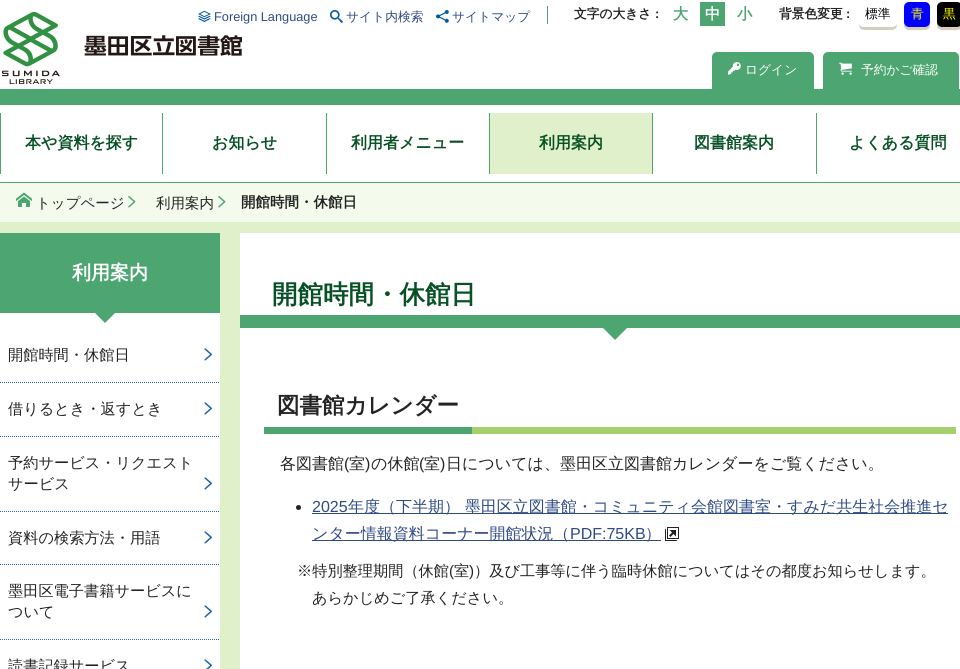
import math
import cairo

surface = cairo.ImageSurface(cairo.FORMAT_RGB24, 960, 669)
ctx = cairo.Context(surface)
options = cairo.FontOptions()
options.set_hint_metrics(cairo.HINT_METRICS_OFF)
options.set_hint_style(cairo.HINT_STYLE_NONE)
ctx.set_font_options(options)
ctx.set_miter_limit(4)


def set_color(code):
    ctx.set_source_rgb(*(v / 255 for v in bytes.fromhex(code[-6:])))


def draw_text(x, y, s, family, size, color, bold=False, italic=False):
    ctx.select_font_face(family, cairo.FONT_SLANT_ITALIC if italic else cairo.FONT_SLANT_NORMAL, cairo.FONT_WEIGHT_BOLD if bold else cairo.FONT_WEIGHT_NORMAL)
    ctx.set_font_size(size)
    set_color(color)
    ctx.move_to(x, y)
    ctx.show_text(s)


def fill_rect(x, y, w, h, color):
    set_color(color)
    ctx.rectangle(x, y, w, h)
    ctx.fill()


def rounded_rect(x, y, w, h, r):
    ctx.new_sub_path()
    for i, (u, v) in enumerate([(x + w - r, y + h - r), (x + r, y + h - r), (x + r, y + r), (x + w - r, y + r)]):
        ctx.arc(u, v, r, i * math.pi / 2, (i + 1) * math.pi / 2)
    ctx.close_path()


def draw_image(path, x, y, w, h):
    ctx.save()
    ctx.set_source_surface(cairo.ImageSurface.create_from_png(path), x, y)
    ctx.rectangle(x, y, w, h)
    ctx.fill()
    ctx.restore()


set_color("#e0f0ca")
ctx.paint()
fill_rect(0, 0, 960, 182, "#ffffff")
fill_rect(547, 6, 1, 18, "#4da671")
draw_image("assets/img4.png", 2, 12, 240, 72)
draw_image("assets/img1.png", 198, 10, 13, 12)
draw_text(214, 21, "Foreign Language", "Liberation Sans", 12.75, "#2f4b85")
draw_image("assets/img2.png", 330, 10, 13, 13)
draw_text(346, 21, "サイト内検索", "WenQuanYi Zen Hei Medium", 12.75, "#2f4b85")
draw_image("assets/img3.png", 436, 10, 13, 13)
draw_text(452, 21, "サイトマップ", "WenQuanYi Zen Hei Medium", 12.75, "#2f4b85")
draw_text(574, 18, "文字の大きさ", "WenQuanYi Zen Hei", 12.75, "#232323", bold=True)
draw_text(655, 18, ":", "Liberation Sans", 12.75, "#232323", bold=True)
draw_text(673, 19, "大", "WenQuanYi Zen Hei", 15.2, "#4da671", bold=True)
fill_rect(700, 2, 25, 24, "#4da671")
draw_text(705, 19, "中", "WenQuanYi Zen Hei", 15.2, "#ffffff", bold=True)
draw_text(737, 19, "小", "WenQuanYi Zen Hei", 15.2, "#4da671", bold=True)
draw_text(779, 18, "背景色変更", "WenQuanYi Zen Hei", 12.75, "#232323", bold=True)
draw_text(846, 18, ":", "Liberation Sans", 12.75, "#232323", bold=True)
set_color("#d6ccbf")
ctx.new_path()
ctx.move_to(859, 22)
ctx.curve_to(859, 30, 861, 30, 868.5, 30)
ctx.line_to(887.5, 30)
ctx.curve_to(895, 30, 897, 30, 897, 22)
ctx.curve_to(897, 25, 895, 27, 892, 27)
ctx.line_to(864, 27)
ctx.curve_to(861, 27, 859, 25, 859, 22)
ctx.close_path()
ctx.fill()
set_color("#ffffff")
rounded_rect(859, 2, 38, 25, 5)
ctx.fill()
draw_text(865, 18, "標準", "WenQuanYi Zen Hei Medium", 12.75, "#000000")
set_color("#d6ccbf")
ctx.new_path()
ctx.move_to(904, 22)
ctx.line_to(904, 25)
ctx.curve_to(904, 28, 906, 30, 909, 30)
ctx.line_to(925, 30)
ctx.curve_to(928, 30, 930, 28, 930, 25)
ctx.line_to(930, 22)
ctx.curve_to(930, 28.5, 921, 27, 917, 27)
ctx.curve_to(913, 27, 904, 28.5, 904, 22)
ctx.close_path()
ctx.fill()
set_color("#0000ff")
rounded_rect(904, 2, 26, 25, 5)
ctx.fill()
draw_text(911, 18, "青", "WenQuanYi Zen Hei Medium", 12.75, "#ffff00")
set_color("#d6ccbf")
ctx.new_path()
ctx.move_to(937, 22)
ctx.line_to(937, 26)
ctx.curve_to(938, 31.5, 945.5, 30, 949.5, 30)
ctx.curve_to(953.5, 30, 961, 31.5, 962, 26)
ctx.line_to(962, 22)
ctx.curve_to(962, 28.5, 953.5, 27, 949.5, 27)
ctx.curve_to(945.5, 27, 937, 28.5, 937, 22)
ctx.close_path()
ctx.fill()
set_color("#000000")
rounded_rect(937, 2, 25, 25, 5)
ctx.fill()
draw_text(943, 18, "黒", "WenQuanYi Zen Hei Medium", 12.75, "#ffff00")
fill_rect(0, 89, 960, 16, "#4da671")
rounded_rect(712, 52, 102, 49, 5)
ctx.fill()
draw_image("assets/img5.png", 728, 62, 13, 13)
draw_text(745, 74, "ログイン", "WenQuanYi Zen Hei Medium", 12.75, "#ffffff")
set_color("#4da671")
rounded_rect(823, 52, 136, 49, 5)
ctx.fill()
draw_image("assets/img6.png", 839, 62, 13, 13)
draw_text(861, 74, "予約かご確認", "WenQuanYi Zen Hei Medium", 12.75, "#ffffff")
fill_rect(0, 182, 960, 1, "#4da671")
fill_rect(162, 113, 1, 61, "#4da671")
fill_rect(0, 113, 1, 61, "#4da671")
draw_text(25, 148, "本や資料を探す", "WenQuanYi Zen Hei", 16, "#075125", bold=True)
fill_rect(326, 113, 1, 61, "#4da671")
draw_text(212, 148, "お知らせ", "WenQuanYi Zen Hei", 16, "#075125", bold=True)
fill_rect(489, 113, 1, 61, "#4da671")
draw_text(351, 148, "利用者メニュー", "WenQuanYi Zen Hei", 16, "#075125", bold=True)
fill_rect(652, 113, 1, 61, "#4da671")
fill_rect(490, 113, 162, 61, "#e0f0ca")
draw_text(539, 148, "利用案内", "WenQuanYi Zen Hei", 16, "#075125", bold=True)
fill_rect(816, 113, 1, 61, "#4da671")
draw_text(694, 148, "図書館案内", "WenQuanYi Zen Hei", 16, "#075125", bold=True)
draw_text(849, 148, "よくある質問", "WenQuanYi Zen Hei", 16, "#075125", bold=True)
fill_rect(0, 183, 960, 39, "#f5fbec")
draw_image("assets/img7.png", 16, 192, 16, 15)
draw_text(36, 208, "トップページ", "WenQuanYi Zen Hei Medium", 14.5, "#232323")
draw_image("assets/img8.png", 128, 196, 8, 12)
draw_text(156, 208, "利用案内", "WenQuanYi Zen Hei Medium", 14.5, "#232323")
draw_image("assets/img8.png", 218, 196, 8, 12)
draw_text(241, 207, "開館時間・休館日", "WenQuanYi Zen Hei", 14.5, "#232323", bold=True)
fill_rect(0, 313, 220, 356, "#ffffff")
fill_rect(0, 233, 220, 80, "#4da671")
draw_text(72, 279, "利用案内", "WenQuanYi Zen Hei", 19, "#ffffff", bold=True)
set_color("#4da671")
ctx.new_path()
ctx.move_to(95, 313)
ctx.line_to(115, 313)
ctx.line_to(105, 323)
ctx.close_path()
ctx.fill()
ctx.new_path()
ctx.move_to(0, 382.5)
ctx.line_to(220, 382.5)
set_color("#2267a2")
ctx.set_line_width(1)
ctx.set_dash([1, 1])
ctx.stroke()
draw_text(8, 360, "開館時間・休館日", "WenQuanYi Zen Hei Medium", 15.2, "#232323")
draw_image("assets/img9.png", 204, 348, 8, 13)
ctx.new_path()
ctx.move_to(0, 436.5)
ctx.line_to(220, 436.5)
set_color("#2267a2")
ctx.stroke()
draw_text(8, 414, "借りるとき・返すとき", "WenQuanYi Zen Hei Medium", 15.2, "#232323")
draw_image("assets/img9.png", 204, 402, 8, 13)
ctx.new_path()
ctx.move_to(0, 511.5)
ctx.line_to(220, 511.5)
set_color("#2267a2")
ctx.stroke()
draw_text(8, 468, "予約サービス・リクエスト", "WenQuanYi Zen Hei Medium", 15.2, "#232323")
draw_text(8, 489, "サービス", "WenQuanYi Zen Hei Medium", 15.2, "#232323")
draw_image("assets/img9.png", 204, 477, 8, 13)
ctx.new_path()
ctx.move_to(0, 564.5)
ctx.line_to(220, 564.5)
set_color("#2267a2")
ctx.stroke()
draw_text(8, 543, "資料の検索方法・用語", "WenQuanYi Zen Hei Medium", 15.2, "#232323")
draw_image("assets/img9.png", 204, 531, 8, 13)
ctx.new_path()
ctx.move_to(0, 639.5)
ctx.line_to(220, 639.5)
set_color("#2267a2")
ctx.stroke()
draw_text(8, 596, "墨田区電子書籍サービスに", "WenQuanYi Zen Hei Medium", 15.2, "#232323")
draw_text(8, 617, "ついて", "WenQuanYi Zen Hei Medium", 15.2, "#232323")
draw_image("assets/img9.png", 204, 605, 8, 13)
draw_text(8, 671, "読書記録サービス", "WenQuanYi Zen Hei Medium", 15.2, "#232323")
draw_image("assets/img10.png", 204, 659, 8, 10)
fill_rect(240, 233, 720, 436, "#ffffff")
fill_rect(240, 315, 720, 13, "#4da671")
draw_text(272, 303, "開館時間・休館日", "WenQuanYi Zen Hei", 25.5, "#075125", bold=True)
set_color("#4da671")
ctx.new_path()
ctx.move_to(600, 325)
ctx.line_to(630, 325)
ctx.line_to(615, 340)
ctx.close_path()
ctx.fill()
fill_rect(472, 427, 484, 7, "#a6cf6e")
draw_text(277, 413, "図書館カレンダー", "WenQuanYi Zen Hei", 22.5, "#232323", bold=True)
fill_rect(264, 427, 208, 7, "#4da671")
draw_text(280, 469, "各図書館", "WenQuanYi Zen Hei Medium", 16, "#232323")
draw_text(344, 469, "(", "Liberation Sans", 16, "#232323")
draw_text(349, 469, "室", "WenQuanYi Zen Hei Medium", 16, "#232323")
draw_text(365, 469, ")", "Liberation Sans", 16, "#232323")
draw_text(371, 469, "の休館", "WenQuanYi Zen Hei Medium", 16, "#232323")
draw_text(419, 469, "(", "Liberation Sans", 16, "#232323")
draw_text(424, 469, "室", "WenQuanYi Zen Hei Medium", 16, "#232323")
draw_text(440, 469, ")", "Liberation Sans", 16, "#232323")
draw_text(446, 469, "日については、墨田区立図書館カレンダーをご覧ください。", "WenQuanYi Zen Hei Medium", 16, "#232323")
ctx.new_path()
ctx.arc(298.5, 507.5, 2.5, 0, 2 * math.pi)
ctx.fill()
draw_text(312, 512, "2025", "Liberation Sans", 16, "#2f4b85")
fill_rect(312, 513, 636, 1, "#2f4b85")
draw_text(348, 512, "年度（下半期） 墨田区立図書館・コミュニティ会館図書室・すみだ共生社会推進セ", "WenQuanYi Zen Hei Medium", 16, "#2f4b85")
fill_rect(312, 540, 349, 1, "#2f4b85")
draw_text(312, 539, "ンター情報資料コーナー開館状況（", "WenQuanYi Zen Hei Medium", 16, "#2f4b85")
draw_text(570, 539, "PDF:75KB", "Liberation Sans", 16, "#2f4b85")
draw_text(645, 539, "）", "WenQuanYi Zen Hei Medium", 16, "#2f4b85")
draw_image("assets/img11.png", 665, 527, 14, 14)
draw_text(297, 576, "※特別整理期間（休館", "WenQuanYi Zen Hei Medium", 15.2, "#232323")
draw_text(449, 576, "(", "Liberation Sans", 15.2, "#232323")
draw_text(454, 576, "室", "WenQuanYi Zen Hei Medium", 15.2, "#232323")
draw_text(469, 576, ")", "Liberation Sans", 15.2, "#232323")
draw_text(474, 576, "）及び工事等に伴う臨時休館についてはその都度お知らせします。", "WenQuanYi Zen Hei Medium", 15.2, "#232323")
draw_text(312, 603, "あらかじめご了承ください。", "WenQuanYi Zen Hei Medium", 15.2, "#232323")
surface.write_to_png("output.png")
